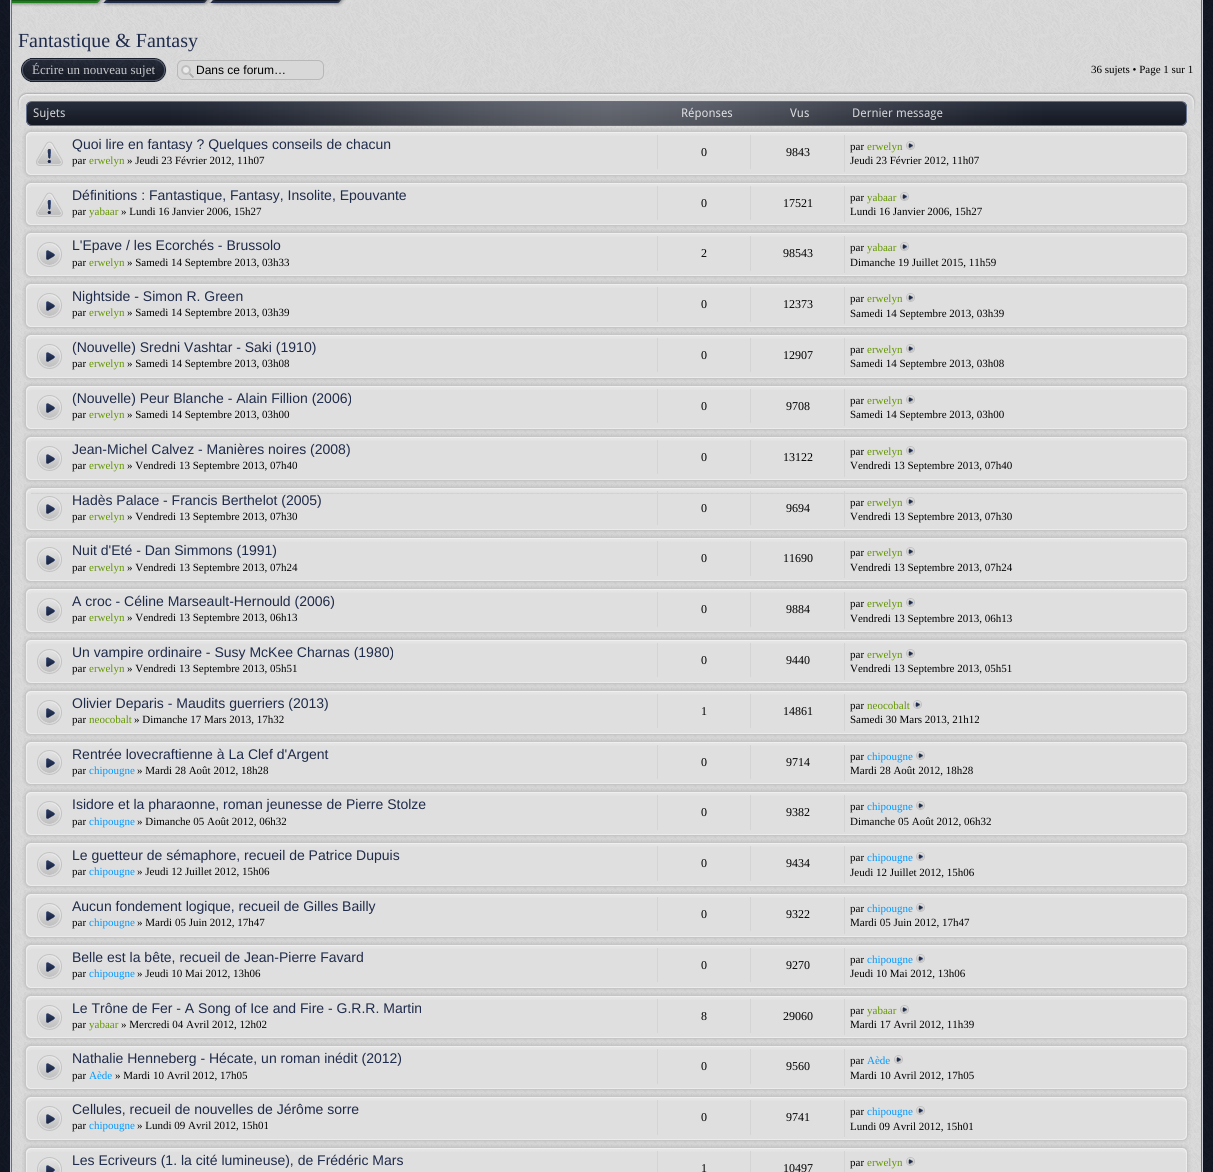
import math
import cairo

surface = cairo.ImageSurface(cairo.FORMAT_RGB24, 1213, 1172)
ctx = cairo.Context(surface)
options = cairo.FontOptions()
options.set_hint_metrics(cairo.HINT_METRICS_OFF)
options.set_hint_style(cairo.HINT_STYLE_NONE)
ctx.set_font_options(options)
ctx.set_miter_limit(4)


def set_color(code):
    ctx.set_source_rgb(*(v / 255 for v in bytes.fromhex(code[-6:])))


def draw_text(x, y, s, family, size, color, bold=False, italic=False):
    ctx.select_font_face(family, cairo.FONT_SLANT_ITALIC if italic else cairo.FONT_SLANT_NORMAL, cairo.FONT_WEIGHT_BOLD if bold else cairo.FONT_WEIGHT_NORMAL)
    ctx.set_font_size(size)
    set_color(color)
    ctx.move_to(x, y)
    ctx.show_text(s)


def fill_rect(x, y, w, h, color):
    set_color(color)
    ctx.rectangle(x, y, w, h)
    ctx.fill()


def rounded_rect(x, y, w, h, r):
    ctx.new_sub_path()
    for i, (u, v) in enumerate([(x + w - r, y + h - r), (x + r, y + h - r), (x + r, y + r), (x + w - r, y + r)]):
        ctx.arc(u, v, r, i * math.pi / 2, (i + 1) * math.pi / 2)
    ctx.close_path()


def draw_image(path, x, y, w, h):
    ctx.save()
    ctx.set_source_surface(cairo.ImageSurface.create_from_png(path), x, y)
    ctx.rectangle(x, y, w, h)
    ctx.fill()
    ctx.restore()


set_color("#ffffff")
ctx.paint()
draw_image("assets/img1.png", 0, 0, 1213, 1172)
draw_image("assets/img2.png", 10, 0, 1193, 1172)
draw_image("assets/img3.png", 93, 0, 12, 7)
draw_image("assets/img4.png", 12, 0, 81, 7)
draw_image("assets/img5.png", 200, 0, 12, 7)
draw_image("assets/img6.png", 102, 0, 98, 7)
draw_image("assets/img7.png", 334, 0, 12, 7)
draw_image("assets/img8.png", 209, 0, 125, 7)
draw_text(18, 47, "Fantastique & Fantasy", "Liberation Serif", 20, "#1f2b4a")
draw_image("assets/img9.png", 30, 58, 137, 24)
draw_image("assets/img10.png", 21, 58, 9, 24)
draw_text(32, 74, "Écrire un nouveau sujet", "Liberation Serif", 13, "#c7c8cb")
set_color("#d8d8d8")
rounded_rect(177, 60, 147, 20, 6)
ctx.fill()
draw_image("assets/img11.png", 181, 65, 13, 13)
rounded_rect(177.5, 60.5, 146, 19, 5.5)
set_color("#b8b8b8")
ctx.set_line_width(1)
ctx.stroke()
draw_text(196, 74, "Dans ce forum…", "Liberation Sans", 12, "#000000")
draw_text(1091, 73, "36 sujets • Page 1 sur 1", "Liberation Serif", 11, "#000000")
draw_image("assets/img12.png", 16, 91, 1181, 23)
draw_image("assets/img13.png", 26, 102, 1161, 24)
rounded_rect(26.5, 101.5, 1160, 24, 5.5)
set_color("#65718c")
ctx.stroke()
draw_text(33, 117, "Sujets", "Droid Sans", 12, "#d2d3d5")
draw_text(681, 117, "Réponses", "Droid Sans", 12, "#dddee0")
draw_text(790, 117, "Vus", "Droid Sans", 12, "#dddee0")
draw_text(852, 117, "Dernier message", "Droid Sans", 12, "#d2d3d5")
fill_rect(28, 136, 1157, 38, "#dfdfdf")
draw_image("assets/img14.png", 22, 128, 1169, 51)
draw_image("assets/img15.png", 36, 141, 27, 25)
draw_text(72, 149, "Quoi lire en fantasy ? Quelques conseils de chacun", "Liberation Sans", 14, "#1f2b4a")
draw_text(72, 164, "par", "Liberation Serif", 11, "#000000")
draw_text(89, 164, "erwelyn", "Liberation Serif", 11, "#649600")
draw_text(127, 164, "» Jeudi 23 Février 2012, 11h07", "Liberation Serif", 11, "#000000")
fill_rect(657, 135, 1, 34, "#d4d4d4")
draw_text(701, 156, "0", "Liberation Serif", 12, "#000000")
fill_rect(750, 135, 1, 34, "#d4d4d4")
draw_text(786, 156, "9843", "Liberation Serif", 12, "#000000")
fill_rect(844, 135, 1, 37, "#d4d4d4")
draw_text(850, 150, "par", "Liberation Serif", 11, "#000000")
draw_text(867, 150, "erwelyn", "Liberation Serif", 11, "#649600")
draw_image("assets/img16.png", 906, 141, 9, 9)
draw_text(850, 164, "Jeudi 23 Février 2012, 11h07", "Liberation Serif", 11, "#000000")
fill_rect(28, 187, 1157, 37, "#dfdfdf")
draw_image("assets/img17.png", 22, 179, 1169, 50)
draw_image("assets/img15.png", 36, 192, 27, 25)
draw_text(72, 200, "Définitions : Fantastique, Fantasy, Insolite, Epouvante", "Liberation Sans", 14, "#1f2b4a")
draw_text(72, 215, "par", "Liberation Serif", 11, "#000000")
draw_text(89, 215, "yabaar", "Liberation Serif", 11, "#649600")
draw_text(121, 215, "» Lundi 16 Janvier 2006, 15h27", "Liberation Serif", 11, "#000000")
fill_rect(657, 186, 1, 34, "#d4d4d4")
draw_text(701, 207, "0", "Liberation Serif", 12, "#000000")
fill_rect(750, 186, 1, 34, "#d4d4d4")
draw_text(783, 207, "17521", "Liberation Serif", 12, "#000000")
fill_rect(844, 186, 1, 36, "#d4d4d4")
draw_text(850, 201, "par", "Liberation Serif", 11, "#000000")
draw_text(867, 201, "yabaar", "Liberation Serif", 11, "#649600")
draw_image("assets/img16.png", 900, 192, 9, 9)
draw_text(850, 215, "Lundi 16 Janvier 2006, 15h27", "Liberation Serif", 11, "#000000")
fill_rect(28, 237, 1157, 38, "#dfdfdf")
draw_image("assets/img14.png", 22, 229, 1169, 51)
draw_image("assets/img18.png", 37, 242, 25, 25)
draw_text(72, 250, "L'Epave / les Ecorchés - Brussolo", "Liberation Sans", 14, "#1f2b4a")
draw_text(72, 266, "par", "Liberation Serif", 11, "#000000")
draw_text(89, 266, "erwelyn", "Liberation Serif", 11, "#649600")
draw_text(127, 266, "» Samedi 14 Septembre 2013, 03h33", "Liberation Serif", 11, "#000000")
fill_rect(657, 236, 1, 35, "#d4d4d4")
draw_text(701, 257, "2", "Liberation Serif", 12, "#000000")
fill_rect(750, 236, 1, 35, "#d4d4d4")
draw_text(783, 257, "98543", "Liberation Serif", 12, "#000000")
fill_rect(844, 236, 1, 37, "#d4d4d4")
draw_text(850, 251, "par", "Liberation Serif", 11, "#000000")
draw_text(867, 251, "yabaar", "Liberation Serif", 11, "#649600")
draw_image("assets/img16.png", 900, 242, 9, 9)
draw_text(850, 266, "Dimanche 19 Juillet 2015, 11h59", "Liberation Serif", 11, "#000000")
fill_rect(28, 288, 1157, 38, "#dfdfdf")
draw_image("assets/img14.png", 22, 280, 1169, 51)
draw_image("assets/img18.png", 37, 293, 25, 25)
draw_text(72, 301, "Nightside - Simon R. Green", "Liberation Sans", 14, "#1f2b4a")
draw_text(72, 316, "par", "Liberation Serif", 11, "#000000")
draw_text(89, 316, "erwelyn", "Liberation Serif", 11, "#649600")
draw_text(127, 316, "» Samedi 14 Septembre 2013, 03h39", "Liberation Serif", 11, "#000000")
fill_rect(657, 287, 1, 35, "#d4d4d4")
draw_text(701, 308, "0", "Liberation Serif", 12, "#000000")
fill_rect(750, 287, 1, 35, "#d4d4d4")
draw_text(783, 308, "12373", "Liberation Serif", 12, "#000000")
fill_rect(844, 287, 1, 37, "#d4d4d4")
draw_text(850, 302, "par", "Liberation Serif", 11, "#000000")
draw_text(867, 302, "erwelyn", "Liberation Serif", 11, "#649600")
draw_image("assets/img16.png", 906, 293, 9, 9)
draw_text(850, 317, "Samedi 14 Septembre 2013, 03h39", "Liberation Serif", 11, "#000000")
fill_rect(28, 339, 1157, 38, "#dfdfdf")
draw_image("assets/img14.png", 22, 331, 1169, 51)
draw_image("assets/img18.png", 37, 344, 25, 25)
draw_text(72, 352, "(Nouvelle) Sredni Vashtar - Saki (1910)", "Liberation Sans", 14, "#1f2b4a")
draw_text(72, 367, "par", "Liberation Serif", 11, "#000000")
draw_text(89, 367, "erwelyn", "Liberation Serif", 11, "#649600")
draw_text(127, 367, "» Samedi 14 Septembre 2013, 03h08", "Liberation Serif", 11, "#000000")
fill_rect(657, 338, 1, 34, "#d4d4d4")
draw_text(701, 359, "0", "Liberation Serif", 12, "#000000")
fill_rect(750, 338, 1, 34, "#d4d4d4")
draw_text(783, 359, "12907", "Liberation Serif", 12, "#000000")
fill_rect(844, 338, 1, 37, "#d4d4d4")
draw_text(850, 353, "par", "Liberation Serif", 11, "#000000")
draw_text(867, 353, "erwelyn", "Liberation Serif", 11, "#649600")
draw_image("assets/img16.png", 906, 344, 9, 9)
draw_text(850, 367, "Samedi 14 Septembre 2013, 03h08", "Liberation Serif", 11, "#000000")
fill_rect(28, 390, 1157, 38, "#dfdfdf")
draw_image("assets/img14.png", 22, 382, 1169, 51)
draw_image("assets/img18.png", 37, 395, 25, 25)
draw_text(72, 403, "(Nouvelle) Peur Blanche - Alain Fillion (2006)", "Liberation Sans", 14, "#1f2b4a")
draw_text(72, 418, "par", "Liberation Serif", 11, "#000000")
draw_text(89, 418, "erwelyn", "Liberation Serif", 11, "#649600")
draw_text(127, 418, "» Samedi 14 Septembre 2013, 03h00", "Liberation Serif", 11, "#000000")
fill_rect(657, 389, 1, 34, "#d4d4d4")
draw_text(701, 410, "0", "Liberation Serif", 12, "#000000")
fill_rect(750, 389, 1, 34, "#d4d4d4")
draw_text(786, 410, "9708", "Liberation Serif", 12, "#000000")
fill_rect(844, 389, 1, 37, "#d4d4d4")
draw_text(850, 404, "par", "Liberation Serif", 11, "#000000")
draw_text(867, 404, "erwelyn", "Liberation Serif", 11, "#649600")
draw_image("assets/img16.png", 906, 395, 9, 9)
draw_text(850, 418, "Samedi 14 Septembre 2013, 03h00", "Liberation Serif", 11, "#000000")
fill_rect(28, 441, 1157, 38, "#dfdfdf")
draw_image("assets/img14.png", 22, 433, 1169, 51)
draw_image("assets/img18.png", 37, 446, 25, 25)
draw_text(72, 454, "Jean-Michel Calvez - Manières noires (2008)", "Liberation Sans", 14, "#1f2b4a")
draw_text(72, 469, "par", "Liberation Serif", 11, "#000000")
draw_text(89, 469, "erwelyn", "Liberation Serif", 11, "#649600")
draw_text(127, 469, "» Vendredi 13 Septembre 2013, 07h40", "Liberation Serif", 11, "#000000")
fill_rect(657, 440, 1, 34, "#d4d4d4")
draw_text(701, 461, "0", "Liberation Serif", 12, "#000000")
fill_rect(750, 440, 1, 34, "#d4d4d4")
draw_text(783, 461, "13122", "Liberation Serif", 12, "#000000")
fill_rect(844, 440, 1, 37, "#d4d4d4")
draw_text(850, 455, "par", "Liberation Serif", 11, "#000000")
draw_text(867, 455, "erwelyn", "Liberation Serif", 11, "#649600")
draw_image("assets/img16.png", 906, 446, 9, 9)
draw_text(850, 469, "Vendredi 13 Septembre 2013, 07h40", "Liberation Serif", 11, "#000000")
fill_rect(28, 492, 1157, 37, "#dfdfdf")
draw_image("assets/img19.png", 22, 484, 1169, 50)
draw_image("assets/img18.png", 37, 496, 25, 25)
draw_text(72, 505, "Hadès Palace - Francis Berthelot (2005)", "Liberation Sans", 14, "#1f2b4a")
draw_text(72, 520, "par", "Liberation Serif", 11, "#000000")
draw_text(89, 520, "erwelyn", "Liberation Serif", 11, "#649600")
draw_text(127, 520, "» Vendredi 13 Septembre 2013, 07h30", "Liberation Serif", 11, "#000000")
fill_rect(657, 491, 1, 34, "#d4d4d4")
draw_text(701, 512, "0", "Liberation Serif", 12, "#000000")
fill_rect(750, 491, 1, 34, "#d4d4d4")
draw_text(786, 512, "9694", "Liberation Serif", 12, "#000000")
fill_rect(844, 491, 1, 36, "#d4d4d4")
draw_text(850, 506, "par", "Liberation Serif", 11, "#000000")
draw_text(867, 506, "erwelyn", "Liberation Serif", 11, "#649600")
draw_image("assets/img16.png", 906, 497, 9, 9)
draw_text(850, 520, "Vendredi 13 Septembre 2013, 07h30", "Liberation Serif", 11, "#000000")
fill_rect(28, 542, 1157, 38, "#dfdfdf")
draw_image("assets/img14.png", 22, 534, 1169, 51)
draw_image("assets/img18.png", 37, 547, 25, 25)
draw_text(72, 555, "Nuit d'Eté - Dan Simmons (1991)", "Liberation Sans", 14, "#1f2b4a")
draw_text(72, 571, "par", "Liberation Serif", 11, "#000000")
draw_text(89, 571, "erwelyn", "Liberation Serif", 11, "#649600")
draw_text(127, 571, "» Vendredi 13 Septembre 2013, 07h24", "Liberation Serif", 11, "#000000")
fill_rect(657, 541, 1, 35, "#d4d4d4")
draw_text(701, 562, "0", "Liberation Serif", 12, "#000000")
fill_rect(750, 541, 1, 35, "#d4d4d4")
draw_text(783, 562, "11690", "Liberation Serif", 12, "#000000")
fill_rect(844, 541, 1, 37, "#d4d4d4")
draw_text(850, 556, "par", "Liberation Serif", 11, "#000000")
draw_text(867, 556, "erwelyn", "Liberation Serif", 11, "#649600")
draw_image("assets/img16.png", 906, 547, 9, 9)
draw_text(850, 571, "Vendredi 13 Septembre 2013, 07h24", "Liberation Serif", 11, "#000000")
fill_rect(28, 593, 1157, 38, "#dfdfdf")
draw_image("assets/img14.png", 22, 585, 1169, 51)
draw_image("assets/img18.png", 37, 598, 25, 25)
draw_text(72, 606, "A croc - Céline Marseault-Hernould (2006)", "Liberation Sans", 14, "#1f2b4a")
draw_text(72, 621, "par", "Liberation Serif", 11, "#000000")
draw_text(89, 621, "erwelyn", "Liberation Serif", 11, "#649600")
draw_text(127, 621, "» Vendredi 13 Septembre 2013, 06h13", "Liberation Serif", 11, "#000000")
fill_rect(657, 592, 1, 35, "#d4d4d4")
draw_text(701, 613, "0", "Liberation Serif", 12, "#000000")
fill_rect(750, 592, 1, 35, "#d4d4d4")
draw_text(786, 613, "9884", "Liberation Serif", 12, "#000000")
fill_rect(844, 592, 1, 37, "#d4d4d4")
draw_text(850, 607, "par", "Liberation Serif", 11, "#000000")
draw_text(867, 607, "erwelyn", "Liberation Serif", 11, "#649600")
draw_image("assets/img16.png", 906, 598, 9, 9)
draw_text(850, 622, "Vendredi 13 Septembre 2013, 06h13", "Liberation Serif", 11, "#000000")
fill_rect(28, 644, 1157, 38, "#dfdfdf")
draw_image("assets/img14.png", 22, 636, 1169, 51)
draw_image("assets/img18.png", 37, 649, 25, 25)
draw_text(72, 657, "Un vampire ordinaire - Susy McKee Charnas (1980)", "Liberation Sans", 14, "#1f2b4a")
draw_text(72, 672, "par", "Liberation Serif", 11, "#000000")
draw_text(89, 672, "erwelyn", "Liberation Serif", 11, "#649600")
draw_text(127, 672, "» Vendredi 13 Septembre 2013, 05h51", "Liberation Serif", 11, "#000000")
fill_rect(657, 643, 1, 34, "#d4d4d4")
draw_text(701, 664, "0", "Liberation Serif", 12, "#000000")
fill_rect(750, 643, 1, 34, "#d4d4d4")
draw_text(786, 664, "9440", "Liberation Serif", 12, "#000000")
fill_rect(844, 643, 1, 37, "#d4d4d4")
draw_text(850, 658, "par", "Liberation Serif", 11, "#000000")
draw_text(867, 658, "erwelyn", "Liberation Serif", 11, "#649600")
draw_image("assets/img16.png", 906, 649, 9, 9)
draw_text(850, 672, "Vendredi 13 Septembre 2013, 05h51", "Liberation Serif", 11, "#000000")
fill_rect(28, 695, 1157, 38, "#dfdfdf")
draw_image("assets/img14.png", 22, 687, 1169, 51)
draw_image("assets/img18.png", 37, 700, 25, 25)
draw_text(72, 708, "Olivier Deparis - Maudits guerriers (2013)", "Liberation Sans", 14, "#1f2b4a")
draw_text(72, 723, "par", "Liberation Serif", 11, "#000000")
draw_text(89, 723, "neocobalt", "Liberation Serif", 11, "#649600")
draw_text(134, 723, "» Dimanche 17 Mars 2013, 17h32", "Liberation Serif", 11, "#000000")
fill_rect(657, 694, 1, 34, "#d4d4d4")
draw_text(701, 715, "1", "Liberation Serif", 12, "#000000")
fill_rect(750, 694, 1, 34, "#d4d4d4")
draw_text(783, 715, "14861", "Liberation Serif", 12, "#000000")
fill_rect(844, 694, 1, 37, "#d4d4d4")
draw_text(850, 709, "par", "Liberation Serif", 11, "#000000")
draw_text(867, 709, "neocobalt", "Liberation Serif", 11, "#649600")
draw_image("assets/img16.png", 913, 700, 9, 9)
draw_text(850, 723, "Samedi 30 Mars 2013, 21h12", "Liberation Serif", 11, "#000000")
fill_rect(28, 746, 1157, 37, "#dfdfdf")
draw_image("assets/img17.png", 22, 738, 1169, 50)
draw_image("assets/img18.png", 37, 750, 25, 25)
draw_text(72, 759, "Rentrée lovecraftienne à La Clef d'Argent", "Liberation Sans", 14, "#1f2b4a")
draw_text(72, 774, "par", "Liberation Serif", 11, "#000000")
draw_text(89, 774, "chipougne", "Liberation Serif", 11, "#0099ff")
draw_text(137, 774, "» Mardi 28 Août 2012, 18h28", "Liberation Serif", 11, "#000000")
fill_rect(657, 745, 1, 34, "#d4d4d4")
draw_text(701, 766, "0", "Liberation Serif", 12, "#000000")
fill_rect(750, 745, 1, 34, "#d4d4d4")
draw_text(786, 766, "9714", "Liberation Serif", 12, "#000000")
fill_rect(844, 745, 1, 36, "#d4d4d4")
draw_text(850, 760, "par", "Liberation Serif", 11, "#000000")
draw_text(867, 760, "chipougne", "Liberation Serif", 11, "#0099ff")
draw_image("assets/img16.png", 916, 751, 9, 9)
draw_text(850, 774, "Mardi 28 Août 2012, 18h28", "Liberation Serif", 11, "#000000")
fill_rect(28, 796, 1157, 38, "#dfdfdf")
draw_image("assets/img14.png", 22, 788, 1169, 51)
draw_image("assets/img18.png", 37, 801, 25, 25)
draw_text(72, 809, "Isidore et la pharaonne, roman jeunesse de Pierre Stolze", "Liberation Sans", 14, "#1f2b4a")
draw_text(72, 825, "par", "Liberation Serif", 11, "#000000")
draw_text(89, 825, "chipougne", "Liberation Serif", 11, "#0099ff")
draw_text(137, 825, "» Dimanche 05 Août 2012, 06h32", "Liberation Serif", 11, "#000000")
fill_rect(657, 795, 1, 35, "#d4d4d4")
draw_text(701, 816, "0", "Liberation Serif", 12, "#000000")
fill_rect(750, 795, 1, 35, "#d4d4d4")
draw_text(786, 816, "9382", "Liberation Serif", 12, "#000000")
fill_rect(844, 795, 1, 37, "#d4d4d4")
draw_text(850, 810, "par", "Liberation Serif", 11, "#000000")
draw_text(867, 810, "chipougne", "Liberation Serif", 11, "#0099ff")
draw_image("assets/img16.png", 916, 801, 9, 9)
draw_text(850, 825, "Dimanche 05 Août 2012, 06h32", "Liberation Serif", 11, "#000000")
fill_rect(28, 847, 1157, 38, "#dfdfdf")
draw_image("assets/img14.png", 22, 839, 1169, 51)
draw_image("assets/img18.png", 37, 852, 25, 25)
draw_text(72, 860, "Le guetteur de sémaphore, recueil de Patrice Dupuis", "Liberation Sans", 14, "#1f2b4a")
draw_text(72, 875, "par", "Liberation Serif", 11, "#000000")
draw_text(89, 875, "chipougne", "Liberation Serif", 11, "#0099ff")
draw_text(137, 875, "» Jeudi 12 Juillet 2012, 15h06", "Liberation Serif", 11, "#000000")
fill_rect(657, 846, 1, 35, "#d4d4d4")
draw_text(701, 867, "0", "Liberation Serif", 12, "#000000")
fill_rect(750, 846, 1, 35, "#d4d4d4")
draw_text(786, 867, "9434", "Liberation Serif", 12, "#000000")
fill_rect(844, 846, 1, 37, "#d4d4d4")
draw_text(850, 861, "par", "Liberation Serif", 11, "#000000")
draw_text(867, 861, "chipougne", "Liberation Serif", 11, "#0099ff")
draw_image("assets/img16.png", 916, 852, 9, 9)
draw_text(850, 876, "Jeudi 12 Juillet 2012, 15h06", "Liberation Serif", 11, "#000000")
fill_rect(28, 898, 1157, 38, "#dfdfdf")
draw_image("assets/img14.png", 22, 890, 1169, 51)
draw_image("assets/img18.png", 37, 903, 25, 25)
draw_text(72, 911, "Aucun fondement logique, recueil de Gilles Bailly", "Liberation Sans", 14, "#1f2b4a")
draw_text(72, 926, "par", "Liberation Serif", 11, "#000000")
draw_text(89, 926, "chipougne", "Liberation Serif", 11, "#0099ff")
draw_text(137, 926, "» Mardi 05 Juin 2012, 17h47", "Liberation Serif", 11, "#000000")
fill_rect(657, 897, 1, 34, "#d4d4d4")
draw_text(701, 918, "0", "Liberation Serif", 12, "#000000")
fill_rect(750, 897, 1, 34, "#d4d4d4")
draw_text(786, 918, "9322", "Liberation Serif", 12, "#000000")
fill_rect(844, 897, 1, 37, "#d4d4d4")
draw_text(850, 912, "par", "Liberation Serif", 11, "#000000")
draw_text(867, 912, "chipougne", "Liberation Serif", 11, "#0099ff")
draw_image("assets/img16.png", 916, 903, 9, 9)
draw_text(850, 926, "Mardi 05 Juin 2012, 17h47", "Liberation Serif", 11, "#000000")
fill_rect(28, 949, 1157, 38, "#dfdfdf")
draw_image("assets/img14.png", 22, 941, 1169, 51)
draw_image("assets/img18.png", 37, 954, 25, 25)
draw_text(72, 962, "Belle est la bête, recueil de Jean-Pierre Favard", "Liberation Sans", 14, "#1f2b4a")
draw_text(72, 977, "par", "Liberation Serif", 11, "#000000")
draw_text(89, 977, "chipougne", "Liberation Serif", 11, "#0099ff")
draw_text(137, 977, "» Jeudi 10 Mai 2012, 13h06", "Liberation Serif", 11, "#000000")
fill_rect(657, 948, 1, 34, "#d4d4d4")
draw_text(701, 969, "0", "Liberation Serif", 12, "#000000")
fill_rect(750, 948, 1, 34, "#d4d4d4")
draw_text(786, 969, "9270", "Liberation Serif", 12, "#000000")
fill_rect(844, 948, 1, 37, "#d4d4d4")
draw_text(850, 963, "par", "Liberation Serif", 11, "#000000")
draw_text(867, 963, "chipougne", "Liberation Serif", 11, "#0099ff")
draw_image("assets/img16.png", 916, 954, 9, 9)
draw_text(850, 977, "Jeudi 10 Mai 2012, 13h06", "Liberation Serif", 11, "#000000")
fill_rect(28, 1000, 1157, 37, "#dfdfdf")
draw_image("assets/img17.png", 22, 992, 1169, 50)
draw_image("assets/img18.png", 37, 1005, 25, 25)
draw_text(72, 1013, "Le Trône de Fer - A Song of Ice and Fire - G.R.R. Martin", "Liberation Sans", 14, "#1f2b4a")
draw_text(72, 1028, "par", "Liberation Serif", 11, "#000000")
draw_text(89, 1028, "yabaar", "Liberation Serif", 11, "#649600")
draw_text(121, 1028, "» Mercredi 04 Avril 2012, 12h02", "Liberation Serif", 11, "#000000")
fill_rect(657, 999, 1, 34, "#d4d4d4")
draw_text(701, 1020, "8", "Liberation Serif", 12, "#000000")
fill_rect(750, 999, 1, 34, "#d4d4d4")
draw_text(783, 1020, "29060", "Liberation Serif", 12, "#000000")
fill_rect(844, 999, 1, 36, "#d4d4d4")
draw_text(850, 1014, "par", "Liberation Serif", 11, "#000000")
draw_text(867, 1014, "yabaar", "Liberation Serif", 11, "#649600")
draw_image("assets/img16.png", 900, 1005, 9, 9)
draw_text(850, 1028, "Mardi 17 Avril 2012, 11h39", "Liberation Serif", 11, "#000000")
fill_rect(28, 1050, 1157, 38, "#dfdfdf")
draw_image("assets/img14.png", 22, 1042, 1169, 51)
draw_image("assets/img18.png", 37, 1055, 25, 25)
draw_text(72, 1063, "Nathalie Henneberg - Hécate, un roman inédit (2012)", "Liberation Sans", 14, "#1f2b4a")
draw_text(72, 1079, "par", "Liberation Serif", 11, "#000000")
draw_text(89, 1079, "Aède", "Liberation Serif", 11, "#0099ff")
draw_text(115, 1079, "» Mardi 10 Avril 2012, 17h05", "Liberation Serif", 11, "#000000")
fill_rect(657, 1049, 1, 35, "#d4d4d4")
draw_text(701, 1070, "0", "Liberation Serif", 12, "#000000")
fill_rect(750, 1049, 1, 35, "#d4d4d4")
draw_text(786, 1070, "9560", "Liberation Serif", 12, "#000000")
fill_rect(844, 1049, 1, 37, "#d4d4d4")
draw_text(850, 1064, "par", "Liberation Serif", 11, "#000000")
draw_text(867, 1064, "Aède", "Liberation Serif", 11, "#0099ff")
draw_image("assets/img16.png", 894, 1055, 9, 9)
draw_text(850, 1079, "Mardi 10 Avril 2012, 17h05", "Liberation Serif", 11, "#000000")
fill_rect(28, 1101, 1157, 38, "#dfdfdf")
draw_image("assets/img14.png", 22, 1093, 1169, 51)
draw_image("assets/img18.png", 37, 1106, 25, 25)
draw_text(72, 1114, "Cellules, recueil de nouvelles de Jérôme sorre", "Liberation Sans", 14, "#1f2b4a")
draw_text(72, 1129, "par", "Liberation Serif", 11, "#000000")
draw_text(89, 1129, "chipougne", "Liberation Serif", 11, "#0099ff")
draw_text(137, 1129, "» Lundi 09 Avril 2012, 15h01", "Liberation Serif", 11, "#000000")
fill_rect(657, 1100, 1, 35, "#d4d4d4")
draw_text(701, 1121, "0", "Liberation Serif", 12, "#000000")
fill_rect(750, 1100, 1, 35, "#d4d4d4")
draw_text(786, 1121, "9741", "Liberation Serif", 12, "#000000")
fill_rect(844, 1100, 1, 37, "#d4d4d4")
draw_text(850, 1115, "par", "Liberation Serif", 11, "#000000")
draw_text(867, 1115, "chipougne", "Liberation Serif", 11, "#0099ff")
draw_image("assets/img16.png", 916, 1106, 9, 9)
draw_text(850, 1130, "Lundi 09 Avril 2012, 15h01", "Liberation Serif", 11, "#000000")
fill_rect(28, 1152, 1157, 20, "#dfdfdf")
draw_image("assets/img20.png", 22, 1144, 1169, 28)
draw_image("assets/img21.png", 37, 1157, 25, 15)
draw_text(72, 1165, "Les Ecriveurs (1. la cité lumineuse), de Frédéric Mars", "Liberation Sans", 14, "#1f2b4a")
fill_rect(657, 1151, 1, 21, "#d4d4d4")
draw_text(701, 1172, "1", "Liberation Serif", 12, "#000000")
fill_rect(750, 1151, 1, 21, "#d4d4d4")
draw_text(783, 1172, "10497", "Liberation Serif", 12, "#000000")
fill_rect(844, 1151, 1, 21, "#d4d4d4")
draw_text(850, 1166, "par", "Liberation Serif", 11, "#000000")
draw_text(867, 1166, "erwelyn", "Liberation Serif", 11, "#649600")
draw_image("assets/img16.png", 906, 1157, 9, 9)
surface.write_to_png("output.png")
